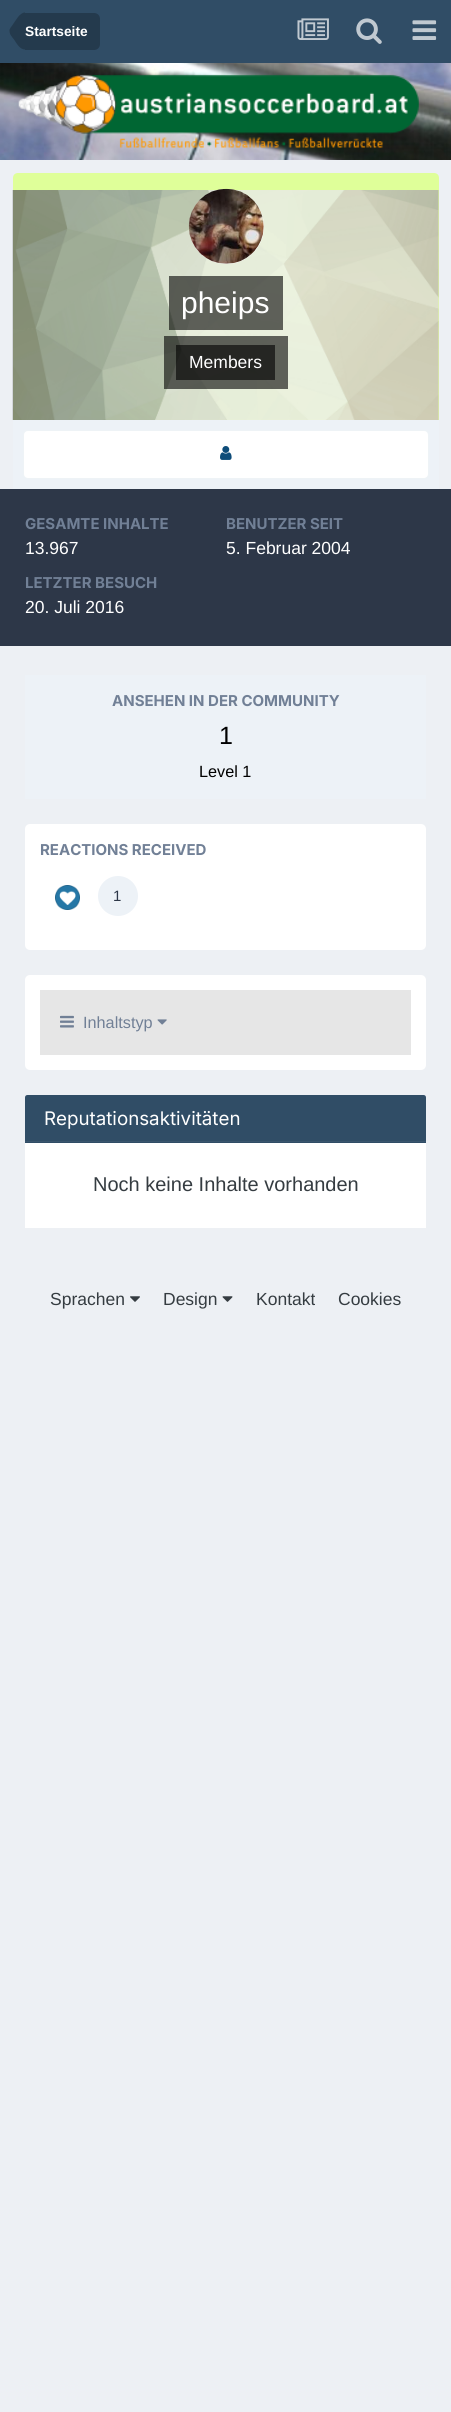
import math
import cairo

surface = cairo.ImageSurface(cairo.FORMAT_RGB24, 451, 2412)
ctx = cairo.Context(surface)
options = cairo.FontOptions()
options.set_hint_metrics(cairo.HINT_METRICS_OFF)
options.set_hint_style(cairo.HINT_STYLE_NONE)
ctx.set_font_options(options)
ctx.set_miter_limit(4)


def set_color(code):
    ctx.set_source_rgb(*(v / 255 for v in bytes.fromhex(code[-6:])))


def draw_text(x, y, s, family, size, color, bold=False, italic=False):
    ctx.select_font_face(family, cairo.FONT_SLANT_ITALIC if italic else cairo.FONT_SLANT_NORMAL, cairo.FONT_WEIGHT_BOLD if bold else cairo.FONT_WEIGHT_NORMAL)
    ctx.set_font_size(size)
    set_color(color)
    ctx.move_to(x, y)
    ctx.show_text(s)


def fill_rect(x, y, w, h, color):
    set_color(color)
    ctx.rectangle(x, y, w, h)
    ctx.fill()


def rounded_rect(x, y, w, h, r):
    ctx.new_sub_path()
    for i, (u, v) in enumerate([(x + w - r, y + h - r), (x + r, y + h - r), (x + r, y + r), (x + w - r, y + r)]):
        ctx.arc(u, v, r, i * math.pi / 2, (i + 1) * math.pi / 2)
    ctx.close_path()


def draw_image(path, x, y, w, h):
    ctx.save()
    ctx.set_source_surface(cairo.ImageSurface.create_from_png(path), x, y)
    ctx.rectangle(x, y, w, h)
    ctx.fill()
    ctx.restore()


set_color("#edf0f4")
ctx.paint()
fill_rect(0, 0, 451, 63, "#304d66")
set_color("#243a4d")
ctx.new_path()
ctx.move_to(25, 13)
ctx.line_to(94, 13)
ctx.curve_to(97.5, 13, 100, 15.5, 100, 19)
ctx.line_to(100, 44)
ctx.curve_to(100, 47.5, 97.5, 50, 94, 50)
ctx.line_to(25, 50)
ctx.close_path()
ctx.fill()
ctx.new_path()
ctx.move_to(25, 49.5)
ctx.curve_to(19.5, 49.5, 16.5, 43, 14, 39.5)
ctx.curve_to(12, 37, 9.5, 34.5, 9.5, 31)
ctx.line_to(25, 31)
ctx.close_path()
ctx.move_to(25, 12.5)
ctx.line_to(25, 31)
ctx.line_to(9.5, 31)
ctx.curve_to(9, 29, 11.5, 26.5, 12.5, 25)
ctx.curve_to(15.5, 21, 19.5, 12.5, 25, 12.5)
ctx.close_path()
ctx.fill()
draw_text(25, 36, "Startseite", "Liberation Sans", 13.75, "#ffffff", bold=True)
draw_image("assets/img1.png", 297, 18, 32, 22)
draw_image("assets/img2.png", 356, 18, 26, 26)
draw_image("assets/img3.png", 412, 20, 25, 20)
draw_image("assets/img4.png", 0, 63, 451, 97)
draw_image("assets/img5.png", 18, 74, 401, 74)
set_color("#dfff99")
ctx.new_path()
ctx.move_to(18, 173)
ctx.line_to(434, 173)
ctx.curve_to(437, 173, 439, 175, 439, 178)
ctx.line_to(439, 420)
ctx.line_to(13, 420)
ctx.line_to(13, 178)
ctx.curve_to(13, 175, 15, 173, 18, 173)
ctx.close_path()
ctx.fill()
draw_image("assets/img6.png", 12, 190, 427, 230)
set_color("#ffffff")
ctx.arc(226.5, 226.5, 37.5, 0, 2 * math.pi)
ctx.fill()
draw_image("assets/img7.png", 188, 188, 76, 76)
ctx.set_source_rgba(0, 0, 0, 0.6)
ctx.rectangle(169, 276, 114, 54)
ctx.fill()
draw_text(181, 313, "pheips", "Liberation Sans", 30, "#ffffff")
ctx.set_source_rgba(0, 0, 0, 0.6)
ctx.rectangle(164, 336, 124, 53)
ctx.fill()
ctx.rectangle(176, 345, 99, 35)
ctx.fill()
draw_text(189, 368, "Members", "Liberation Sans", 17.5, "#ffffff")
fill_rect(13, 420, 426, 69, "#edf2f7")
set_color("#ffffff")
rounded_rect(23, 430, 406, 49, 5)
ctx.fill()
rounded_rect(23.5, 430.5, 405, 48, 4.5)
ctx.set_source_rgba(0.055, 0.298, 0.475, 0.07)
ctx.set_line_width(1)
ctx.stroke()
draw_image("assets/img8.png", 220, 446, 12, 14)
fill_rect(0, 489, 451, 157, "#2d3748")
draw_text(25, 529, "GESAMTE INHALTE", "Inter", 15, "#718096", bold=True)
draw_text(25, 554, "13.967", "Liberation Sans", 17.5, "#ffffff")
draw_text(226, 529, "BENUTZER SEIT", "Inter", 15, "#718096", bold=True)
draw_text(226, 554, "5. Februar 2004", "Liberation Sans", 17.5, "#ffffff")
draw_text(25, 588, "LETZTER BESUCH", "Inter", 15, "#718096", bold=True)
draw_text(25, 613, "20. Juli 2016", "Liberation Sans", 17.5, "#ffffff")
fill_rect(25, 675, 401, 124, "#edf2f7")
draw_text(112, 706, "ANSEHEN IN DER COMMUNITY", "Inter", 15, "#718096", bold=True)
draw_text(219, 744, "1", "Liberation Sans", 25, "#000000")
draw_text(199, 777, "Level 1", "Liberation Sans", 16.25, "#000000")
set_color("#ffffff")
rounded_rect(25, 824, 401, 126, 5)
ctx.fill()
draw_text(40, 855, "REACTIONS RECEIVED", "Inter", 15, "#718096", bold=True)
draw_image("assets/img9.png", 55, 885, 25, 25)
set_color("#edf2f7")
ctx.arc(118, 896, 20, 0, 2 * math.pi)
ctx.fill()
draw_text(113, 901, "1", "Liberation Sans", 15, "#2d3748")
set_color("#ffffff")
rounded_rect(25, 975, 401, 95, 5)
ctx.fill()
fill_rect(40, 990, 371, 65, "#e6e6e6")
draw_image("assets/img10.png", 60, 1015, 14, 13)
draw_text(83, 1028, "Inhaltstyp", "Liberation Sans", 16.25, "#718096")
draw_image("assets/img11.png", 157, 1019, 10, 6)
set_color("#304d66")
ctx.new_path()
ctx.move_to(27.5, 1095)
ctx.line_to(423.5, 1095)
ctx.curve_to(425, 1095, 426, 1096, 426, 1097.5)
ctx.line_to(426, 1143)
ctx.line_to(25, 1143)
ctx.line_to(25, 1097.5)
ctx.curve_to(25, 1096, 26, 1095, 27.5, 1095)
ctx.close_path()
ctx.fill()
fill_rect(25, 1141, 401, 1, "#3a556d")
draw_text(44, 1125, "Reputationsaktivitäten", "Inter", 18.75, "#ffffff")
fill_rect(25, 1143, 401, 85, "#ffffff")
draw_text(93, 1191, "Noch keine Inhalte vorhanden", "Liberation Sans", 20, "#353c41")
draw_text(50, 1305, "Sprachen", "Liberation Sans", 17.5, "#353c41")
draw_image("assets/img12.png", 130, 1296, 10, 6)
draw_text(163, 1305, "Design", "Liberation Sans", 17.5, "#353c41")
draw_image("assets/img13.png", 222, 1296, 11, 6)
draw_text(256, 1305, "Kontakt", "Liberation Sans", 17.5, "#353c41")
draw_text(338, 1305, "Cookies", "Liberation Sans", 17.5, "#353c41")
surface.write_to_png("output.png")
